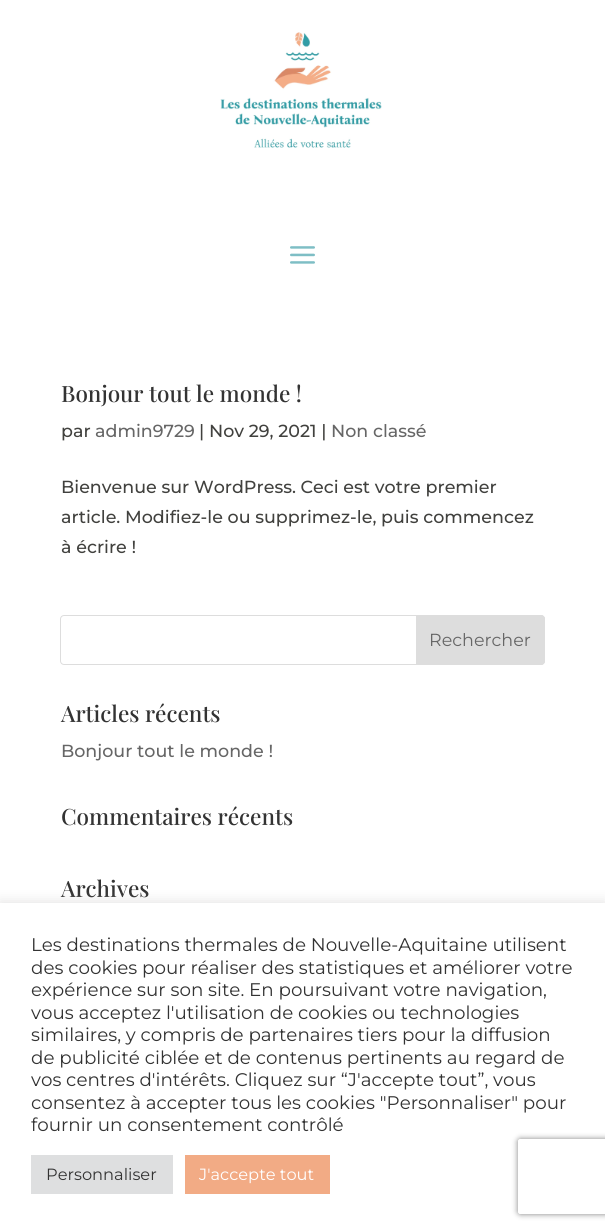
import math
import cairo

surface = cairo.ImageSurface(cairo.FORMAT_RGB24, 605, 1231)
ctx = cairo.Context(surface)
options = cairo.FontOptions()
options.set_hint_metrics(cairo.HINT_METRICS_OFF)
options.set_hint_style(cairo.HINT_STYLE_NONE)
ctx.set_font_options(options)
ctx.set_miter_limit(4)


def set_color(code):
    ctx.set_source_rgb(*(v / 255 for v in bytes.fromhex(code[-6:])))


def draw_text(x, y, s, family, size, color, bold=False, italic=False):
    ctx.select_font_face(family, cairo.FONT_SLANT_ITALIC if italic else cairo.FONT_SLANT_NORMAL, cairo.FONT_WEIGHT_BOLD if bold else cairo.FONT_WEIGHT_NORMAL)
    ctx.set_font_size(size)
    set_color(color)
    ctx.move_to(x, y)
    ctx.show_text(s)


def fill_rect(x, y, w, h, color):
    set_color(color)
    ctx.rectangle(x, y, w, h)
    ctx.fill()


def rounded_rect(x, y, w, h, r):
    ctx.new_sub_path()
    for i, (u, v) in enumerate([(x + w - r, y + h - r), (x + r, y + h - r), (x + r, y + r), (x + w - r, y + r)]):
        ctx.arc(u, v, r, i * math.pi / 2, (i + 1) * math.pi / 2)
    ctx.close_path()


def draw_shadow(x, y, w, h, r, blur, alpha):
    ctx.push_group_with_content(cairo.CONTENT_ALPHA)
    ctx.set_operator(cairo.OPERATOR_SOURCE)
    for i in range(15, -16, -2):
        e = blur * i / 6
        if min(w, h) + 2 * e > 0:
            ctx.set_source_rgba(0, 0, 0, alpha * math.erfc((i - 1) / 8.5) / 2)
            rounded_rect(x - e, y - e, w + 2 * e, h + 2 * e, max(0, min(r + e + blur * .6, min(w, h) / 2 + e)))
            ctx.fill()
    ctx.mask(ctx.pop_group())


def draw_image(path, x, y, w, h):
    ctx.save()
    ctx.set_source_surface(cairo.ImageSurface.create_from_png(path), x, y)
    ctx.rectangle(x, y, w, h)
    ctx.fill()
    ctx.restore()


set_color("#ffffff")
ctx.paint()
draw_image("assets/img1.png", 220, 32, 162, 116)
draw_image("assets/img2.png", 290, 246, 25, 18)
draw_text(61, 402, "Bonjour tout le monde !", "Playfair Display Medium", 22.5, "#333333")
draw_text(61, 437, "par", "Montserrat Thin", 17.5, "#41413e")
draw_text(95, 437, "admin9729", "Montserrat Thin", 17.5, "#666666")
draw_text(199, 437, "| Nov 29, 2021 |", "Montserrat Thin", 17.5, "#41413e")
draw_text(331, 437, "Non classé", "Montserrat Thin", 17.5, "#666666")
draw_text(61, 493, "Bienvenue sur WordPress. Ceci est votre premier", "Montserrat Thin", 17.5, "#41413e")
draw_text(61, 523, "article. Modifiez-le ou supprimez-le, puis commencez", "Montserrat Thin", 17.5, "#41413e")
draw_text(61, 553, "à écrire !", "Montserrat Thin", 17.5, "#41413e")
rounded_rect(60.5, 615.5, 484, 49, 3.5)
set_color("#dddddd")
ctx.set_line_width(1)
ctx.stroke()
ctx.new_path()
ctx.move_to(416.5, 615.5)
ctx.line_to(541, 615.5)
ctx.curve_to(543, 615.5, 544.5, 617, 544.5, 619)
ctx.line_to(544.5, 661)
ctx.curve_to(544.5, 663, 543, 664.5, 541, 664.5)
ctx.line_to(416.5, 664.5)
ctx.close_path()
ctx.fill_preserve()
ctx.stroke()
draw_text(429, 646, "Rechercher", "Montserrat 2 Thin", 17.5, "#666666")
draw_text(61, 722, "Articles récents", "Playfair Display Medium", 22.5, "#333333")
draw_text(61, 757, "Bonjour tout le monde !", "Montserrat Thin", 17.5, "#666666")
draw_text(61, 825, "Commentaires récents", "Playfair Display Medium", 22.5, "#333333")
draw_text(61, 897, "Archives", "Playfair Display Medium", 22.5, "#333333")
set_color("#acabab")
draw_shadow(0, 901, 605, 329, 0, 6, 0.3)
fill_rect(0, 903, 605, 328, "#ffffff")
draw_text(31, 951, "Les destinations thermales de Nouvelle-Aquitaine utilisent", "Montserrat 2 Thin", 18.3, "#333333")
draw_text(31, 974, "des cookies pour réaliser des statistiques et améliorer votre", "Montserrat 2 Thin", 18.3, "#333333")
draw_text(31, 996, "expérience sur son site. En poursuivant votre navigation,", "Montserrat 2 Thin", 18.3, "#333333")
draw_text(31, 1019, "vous acceptez l'utilisation de cookies ou technologies", "Montserrat 2 Thin", 18.3, "#333333")
draw_text(31, 1041, "similaires, y compris de partenaires tiers pour la diffusion", "Montserrat 2 Thin", 18.3, "#333333")
draw_text(31, 1064, "de publicité ciblée et de contenus pertinents au regard de", "Montserrat 2 Thin", 18.3, "#333333")
draw_text(31, 1086, "vos centres d'intérêts. Cliquez sur “J'accepte tout”, vous", "Montserrat 2 Thin", 18.3, "#333333")
draw_text(31, 1109, "consentez à accepter tous les cookies \"Personnaliser\" pour", "Montserrat 2 Thin", 18.3, "#333333")
draw_text(31, 1131, "fournir un consentement contrôlé", "Montserrat 2 Thin", 18.3, "#333333")
fill_rect(31, 1155, 142, 39, "#dedfe0")
draw_text(46, 1180, "Personnaliser", "Montserrat 2 Thin", 16.25, "#333333")
fill_rect(185, 1155, 145, 39, "#f2ab85")
draw_text(199, 1180, "J'accepte tout", "Montserrat 2 Thin", 16.25, "#ffffff")
ctx.save()
ctx.set_fill_rule(cairo.FILL_RULE_EVEN_ODD)
ctx.new_path()
ctx.move_to(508, 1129)
ctx.line_to(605, 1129)
ctx.line_to(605, 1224)
ctx.line_to(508, 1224)
ctx.close_path()
ctx.move_to(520.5, 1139)
ctx.line_to(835.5, 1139)
ctx.curve_to(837, 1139, 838, 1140, 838, 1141.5)
ctx.line_to(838, 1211.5)
ctx.curve_to(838, 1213, 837, 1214, 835.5, 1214)
ctx.line_to(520.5, 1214)
ctx.curve_to(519, 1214, 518, 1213, 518, 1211.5)
ctx.line_to(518, 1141.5)
ctx.curve_to(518, 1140, 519, 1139, 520.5, 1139)
ctx.close_path()
ctx.clip()
set_color("#808080")
draw_shadow(518, 1139, 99, 75, 2.5, 3, 1)
ctx.restore()
surface.write_to_png("output.png")
